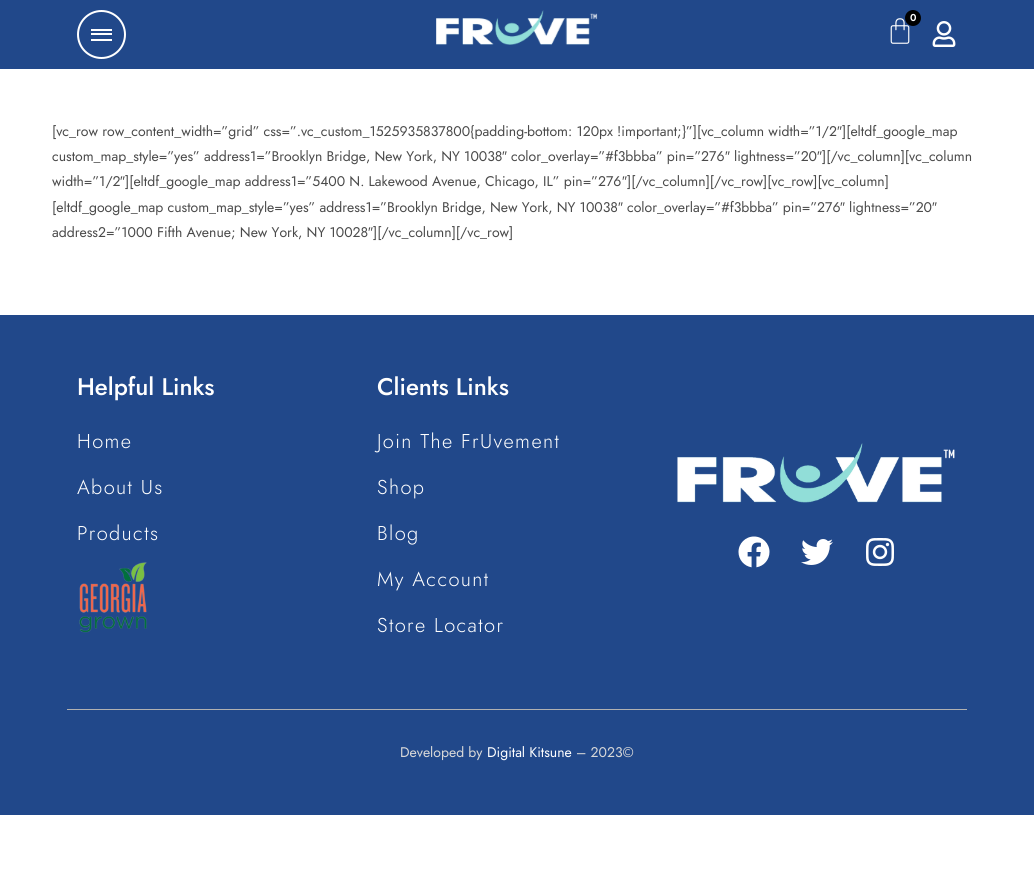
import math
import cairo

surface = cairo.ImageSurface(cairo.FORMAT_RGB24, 1034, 875)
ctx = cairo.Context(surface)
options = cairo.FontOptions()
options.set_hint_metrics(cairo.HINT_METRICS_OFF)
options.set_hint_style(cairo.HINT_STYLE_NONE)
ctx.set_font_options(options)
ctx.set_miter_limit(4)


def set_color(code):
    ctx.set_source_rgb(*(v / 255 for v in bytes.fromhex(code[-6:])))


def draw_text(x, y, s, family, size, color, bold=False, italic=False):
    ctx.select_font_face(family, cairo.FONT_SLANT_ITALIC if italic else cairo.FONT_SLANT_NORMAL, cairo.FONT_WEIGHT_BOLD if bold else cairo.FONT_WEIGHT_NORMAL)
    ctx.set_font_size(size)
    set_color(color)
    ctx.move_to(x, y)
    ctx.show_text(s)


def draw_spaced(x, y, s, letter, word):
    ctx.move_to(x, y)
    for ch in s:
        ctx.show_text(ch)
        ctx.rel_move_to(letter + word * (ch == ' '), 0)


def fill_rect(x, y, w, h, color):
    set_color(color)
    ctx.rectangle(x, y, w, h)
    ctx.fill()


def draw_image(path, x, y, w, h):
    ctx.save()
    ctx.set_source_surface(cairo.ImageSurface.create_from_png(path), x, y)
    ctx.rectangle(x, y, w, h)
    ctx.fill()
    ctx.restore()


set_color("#ffffff")
ctx.paint()
fill_rect(0, 0, 1034, 69, "#21488a")
ctx.arc(101.5, 34.5, 23.5, 0, 2 * math.pi)
set_color("#ffffff")
ctx.stroke()
fill_rect(91, 29, 21, 2, "#ffffff")
fill_rect(91, 33, 21, 2, "#ffffff")
fill_rect(91, 39, 21, 2, "#ffffff")
draw_image("assets/img1.png", 436, 10, 162, 35)
draw_image("assets/img2.png", 890, 18, 20, 26)
set_color("#000000")
ctx.arc(913, 18, 8, 0, 2 * math.pi)
ctx.fill()
draw_text(910, 21, "0", "Jost SemiBold", 10, "#ffffff")
draw_image("assets/img3.png", 932, 21, 24, 26)
draw_text(52, 136, "[vc_row row_content_width=”grid” css=”.vc_custom_1525935837800{padding-bottom: 120px !important;}”][vc_column width=”1/2", "Jost", 14, "#4a4a4a")
draw_text(837, 136, "″", "Liberation Sans", 14, "#4a4a4a")
draw_text(842, 136, "][eltdf_google_map", "Jost", 14, "#4a4a4a")
draw_text(52, 161, "custom_map_style=”yes” address1=”Brooklyn Bridge, New York, NY 10038", "Jost", 14, "#4a4a4a")
draw_text(502, 161, "″", "Liberation Sans", 14, "#4a4a4a")
draw_text(511, 161, "color_overlay=”#f3bbba” pin=”276", "Jost", 14, "#4a4a4a")
draw_text(725, 161, "″", "Liberation Sans", 14, "#4a4a4a")
draw_text(734, 161, "lightness=”20", "Jost", 14, "#4a4a4a")
draw_text(817, 161, "″", "Liberation Sans", 14, "#4a4a4a")
draw_text(822, 161, "][/vc_column][vc_column", "Jost", 14, "#4a4a4a")
draw_text(52, 186, "width=”1/2", "Jost", 14, "#4a4a4a")
draw_text(120, 186, "″", "Liberation Sans", 14, "#4a4a4a")
draw_text(125, 186, "][eltdf_google_map address1=”5400 N. Lakewood Avenue, Chicago, IL” pin=”276", "Jost", 14, "#4a4a4a")
draw_text(622, 186, "″", "Liberation Sans", 14, "#4a4a4a")
draw_text(627, 186, "][/vc_column][/vc_row][vc_row][vc_column]", "Jost", 14, "#4a4a4a")
draw_text(52, 212, "[eltdf_google_map custom_map_style=”yes” address1=”Brooklyn Bridge, New York, NY 10038", "Jost", 14, "#4a4a4a")
draw_text(618, 212, "″", "Liberation Sans", 14, "#4a4a4a")
draw_text(627, 212, "color_overlay=”#f3bbba” pin=”276", "Jost", 14, "#4a4a4a")
draw_text(840, 212, "″", "Liberation Sans", 14, "#4a4a4a")
draw_text(849, 212, "lightness=”20", "Jost", 14, "#4a4a4a")
draw_text(932, 212, "″", "Liberation Sans", 14, "#4a4a4a")
draw_text(52, 237, "address2=”1000 Fifth Avenue; New York, NY 10028", "Jost", 14, "#4a4a4a")
draw_text(368, 237, "″", "Liberation Sans", 14, "#4a4a4a")
draw_text(373, 237, "][/vc_column][/vc_row]", "Jost", 14, "#4a4a4a")
fill_rect(0, 315, 1034, 500, "#21488a")
draw_text(77, 395, "Helpful Links", "Jost Medium", 24, "#ffffff")
ctx.select_font_face("Jost Light")
ctx.set_font_size(20)
draw_spaced(77, 448, "Home", 1.4, 0)
draw_spaced(77, 494, "About Us", 1.4, 0)
draw_spaced(77, 540, "Products", 1.4, 0)
draw_image("assets/img4.png", 79, 562, 68, 71)
draw_text(377, 395, "Clients Links", "Jost Medium", 24, "#ffffff")
ctx.select_font_face("Jost Light")
ctx.set_font_size(20)
draw_spaced(377, 448, "Join The FrUvement", 1.4, 0)
draw_spaced(377, 494, "Shop", 1.4, 0)
draw_spaced(377, 540, "Blog", 1.4, 0)
draw_spaced(377, 586, "My Account", 1.4, 0)
draw_spaced(377, 632, "Store Locator", 1.4, 0)
draw_image("assets/img5.png", 677, 443, 278, 60)
draw_image("assets/img6.png", 738, 536, 32, 32)
draw_image("assets/img7.png", 801, 539, 32, 26)
draw_image("assets/img8.png", 866, 538, 28, 28)
fill_rect(67, 709, 900, 1, "#b1b1b1")
draw_text(400, 757, "Developed by", "Jost", 14, "#d8d8d8")
draw_text(487, 757, "Digital Kitsune", "Jost", 14, "#ffffff")
draw_text(576, 757, "– 2023©", "Jost", 14, "#d8d8d8")
surface.write_to_png("output.png")
